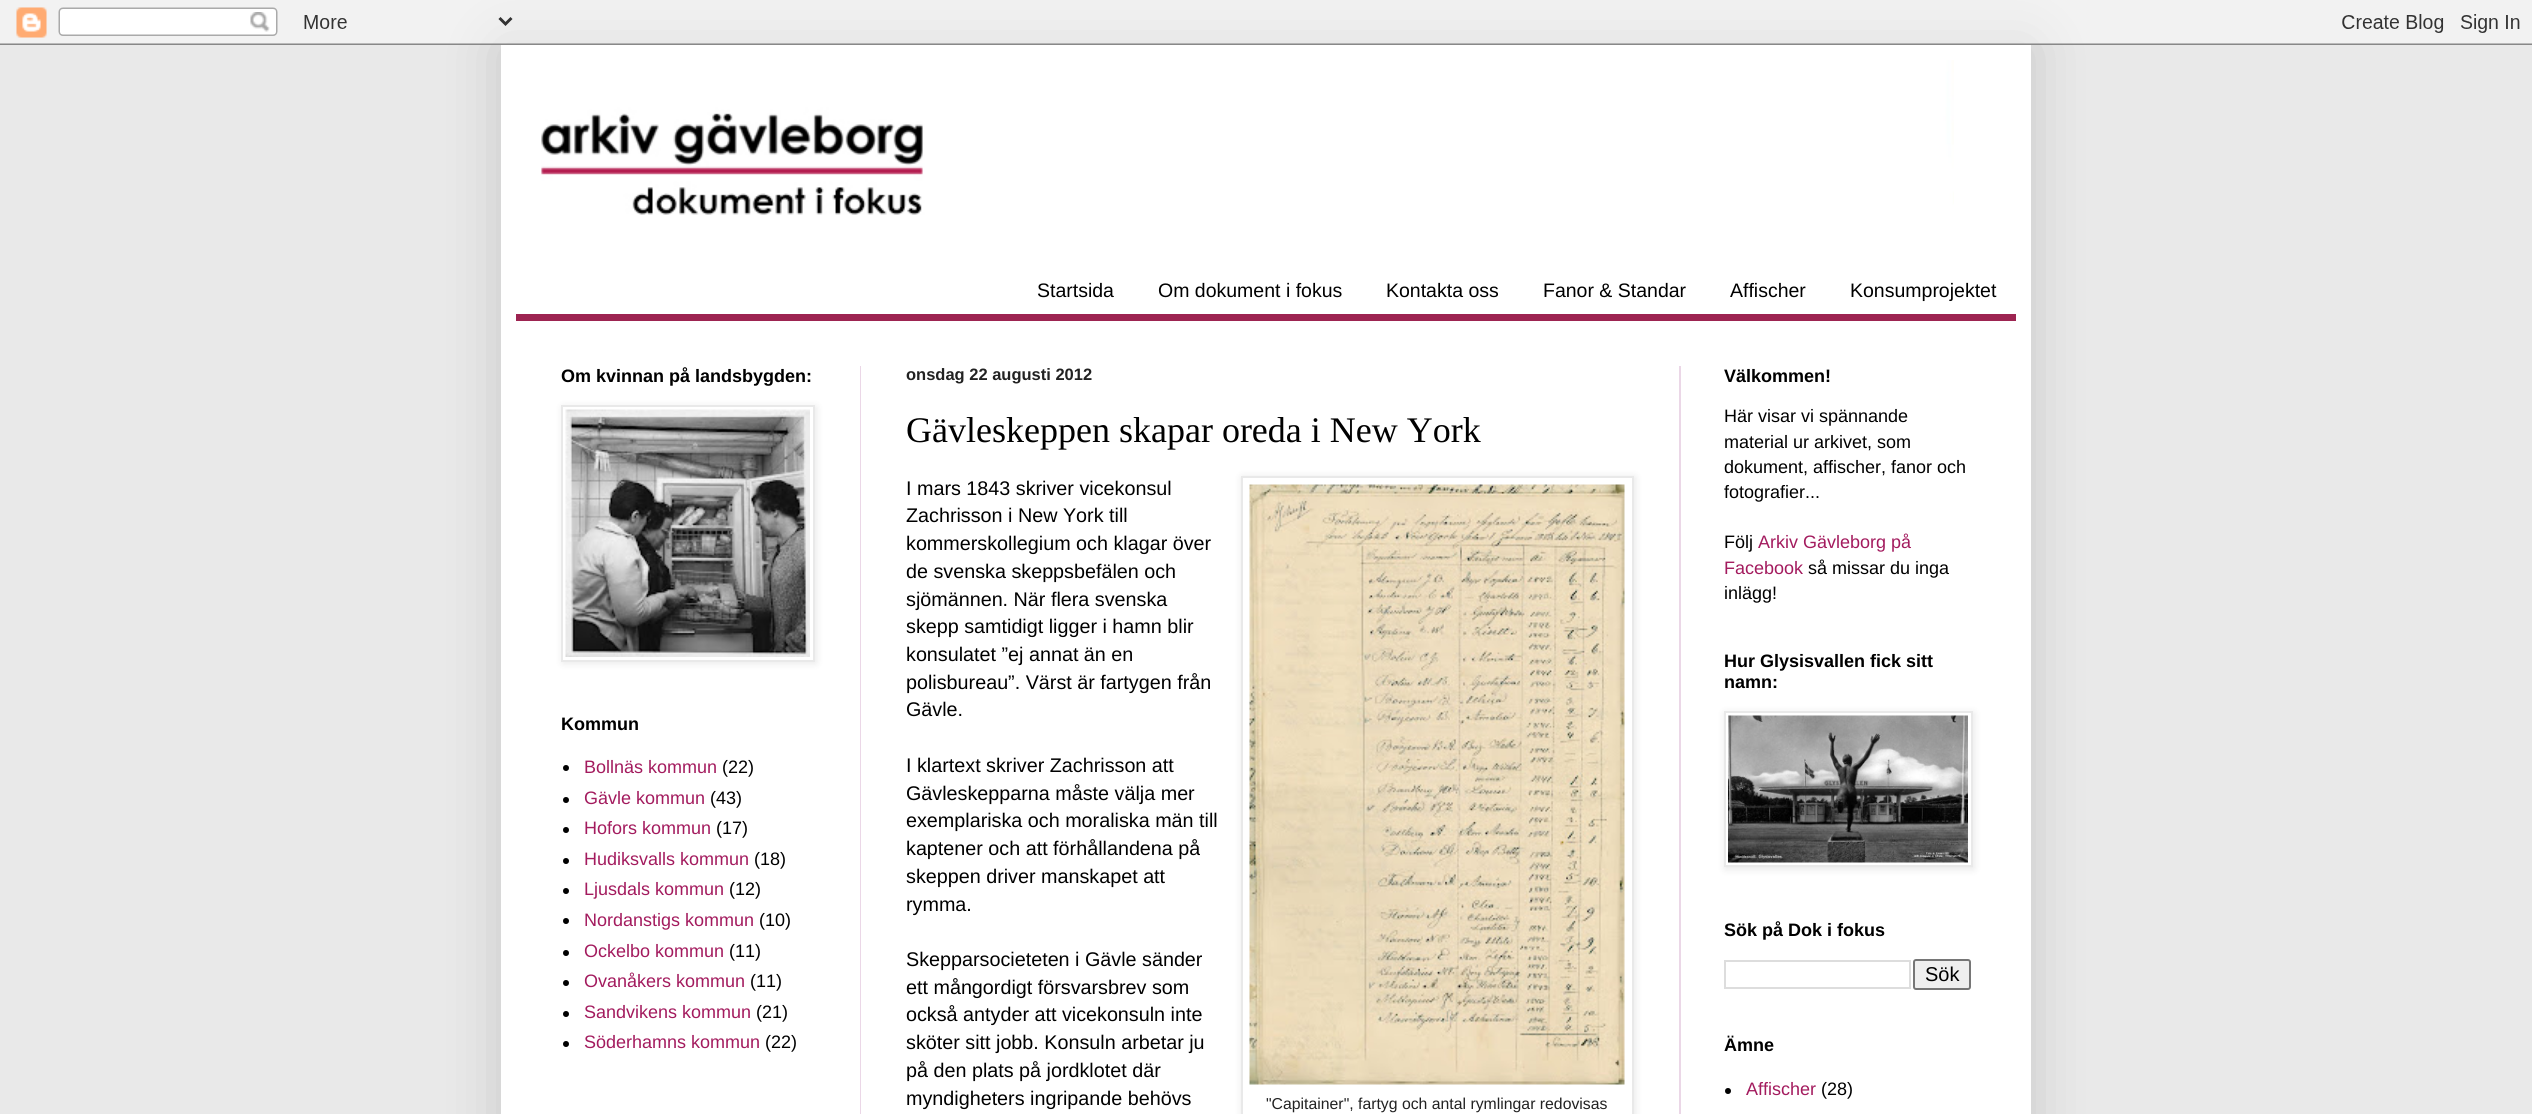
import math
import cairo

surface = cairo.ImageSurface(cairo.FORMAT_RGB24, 2532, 1114)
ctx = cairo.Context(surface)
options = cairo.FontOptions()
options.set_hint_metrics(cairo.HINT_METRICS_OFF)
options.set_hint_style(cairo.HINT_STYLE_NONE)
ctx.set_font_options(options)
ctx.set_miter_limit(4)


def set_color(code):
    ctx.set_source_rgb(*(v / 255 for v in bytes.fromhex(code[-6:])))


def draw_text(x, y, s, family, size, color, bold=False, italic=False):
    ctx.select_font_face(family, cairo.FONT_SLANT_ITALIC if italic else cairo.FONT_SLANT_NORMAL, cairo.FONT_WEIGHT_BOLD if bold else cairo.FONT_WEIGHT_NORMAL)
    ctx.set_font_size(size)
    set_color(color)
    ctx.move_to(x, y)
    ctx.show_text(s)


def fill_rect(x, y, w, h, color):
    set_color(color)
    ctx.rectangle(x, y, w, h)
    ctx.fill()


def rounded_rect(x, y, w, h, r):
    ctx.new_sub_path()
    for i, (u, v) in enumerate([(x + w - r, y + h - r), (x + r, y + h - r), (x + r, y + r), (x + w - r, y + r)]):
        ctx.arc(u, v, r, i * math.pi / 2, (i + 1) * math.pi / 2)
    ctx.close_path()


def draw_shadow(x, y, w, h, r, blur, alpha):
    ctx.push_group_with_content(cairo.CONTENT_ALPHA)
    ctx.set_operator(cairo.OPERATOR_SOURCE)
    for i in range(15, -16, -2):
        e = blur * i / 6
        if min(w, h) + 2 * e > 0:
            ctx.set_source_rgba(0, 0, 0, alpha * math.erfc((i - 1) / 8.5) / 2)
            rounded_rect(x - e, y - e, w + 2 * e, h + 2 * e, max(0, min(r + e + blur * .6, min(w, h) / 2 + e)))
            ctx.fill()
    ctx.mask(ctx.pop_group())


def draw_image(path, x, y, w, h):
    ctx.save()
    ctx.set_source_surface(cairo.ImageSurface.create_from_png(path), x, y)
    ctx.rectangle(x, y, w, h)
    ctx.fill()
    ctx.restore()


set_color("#e9e9e9")
ctx.paint()
set_color("#000000")
draw_shadow(501, 45, 1530, 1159, 0, 30, 0.15)
draw_image("assets/img1.png", 0, 0, 2532, 45)
fill_rect(501, 45, 1530, 1069, "#ffffff")
draw_image("assets/img2.png", 541, 60, 1413, 155)
fill_rect(516, 314, 1500, 7, "#9d2451")
draw_text(1037, 297, "Startsida", "Liberation Sans", 19.5, "#000000")
draw_text(1158, 297, "Om dokument i fokus", "Liberation Sans", 19.5, "#000000")
draw_text(1386, 297, "Kontakta oss", "Liberation Sans", 19.5, "#000000")
draw_text(1543, 297, "Fanor & Standar", "Liberation Sans", 19.5, "#000000")
draw_text(1730, 297, "Affischer", "Liberation Sans", 19.5, "#000000")
draw_text(1850, 297, "Konsumprojektet", "Liberation Sans", 19.5, "#000000")
fill_rect(860, 366, 1, 748, "#ebd7e7")
fill_rect(1679, 366, 2, 748, "#ebd7e7")
draw_text(561, 382, "Om kvinnan på landsbygden:", "Liberation Sans", 18, "#000000", bold=True)
set_color("#000000")
draw_shadow(563, 407, 253, 256, 0, 4, 0.1)
set_color("#ffffff")
ctx.rectangle(562, 406, 252, 255)
ctx.fill_preserve()
set_color("#e9e9e9")
ctx.stroke()
draw_image("assets/img3.png", 565, 409, 245, 248)
draw_text(561, 730, "Kommun", "Liberation Sans", 18, "#000000", bold=True)
ctx.new_path()
ctx.arc(566, 768, 3, 0, 2 * math.pi)
ctx.fill()
draw_text(584, 773, "Bollnäs kommun", "Liberation Sans", 18, "#a31b5e")
draw_text(722, 773, "(22)", "Liberation Sans", 18, "#000000")
ctx.new_path()
ctx.arc(566, 800, 3, 0, 2 * math.pi)
ctx.fill()
draw_text(584, 804, "Gävle kommun", "Liberation Sans", 18, "#a31b5e")
draw_text(710, 804, "(43)", "Liberation Sans", 18, "#000000")
ctx.new_path()
ctx.arc(566, 830, 3, 0, 2 * math.pi)
ctx.fill()
draw_text(584, 834, "Hofors kommun", "Liberation Sans", 18, "#a31b5e")
draw_text(716, 834, "(17)", "Liberation Sans", 18, "#000000")
ctx.new_path()
ctx.arc(566, 861, 3, 0, 2 * math.pi)
ctx.fill()
draw_text(584, 865, "Hudiksvalls kommun", "Liberation Sans", 18, "#a31b5e")
draw_text(754, 865, "(18)", "Liberation Sans", 18, "#000000")
ctx.new_path()
ctx.arc(566, 891, 3, 0, 2 * math.pi)
ctx.fill()
draw_text(584, 895, "Ljusdals kommun", "Liberation Sans", 18, "#a31b5e")
draw_text(729, 895, "(12)", "Liberation Sans", 18, "#000000")
ctx.new_path()
ctx.arc(566, 921, 3, 0, 2 * math.pi)
ctx.fill()
draw_text(584, 926, "Nordanstigs kommun", "Liberation Sans", 18, "#a31b5e")
draw_text(759, 926, "(10)", "Liberation Sans", 18, "#000000")
ctx.new_path()
ctx.arc(566, 953, 3, 0, 2 * math.pi)
ctx.fill()
draw_text(584, 957, "Ockelbo kommun", "Liberation Sans", 18, "#a31b5e")
draw_text(729, 957, "(11)", "Liberation Sans", 18, "#000000")
ctx.new_path()
ctx.arc(566, 983, 3, 0, 2 * math.pi)
ctx.fill()
draw_text(584, 987, "Ovanåkers kommun", "Liberation Sans", 18, "#a31b5e")
draw_text(750, 987, "(11)", "Liberation Sans", 18, "#000000")
ctx.new_path()
ctx.arc(566, 1014, 3, 0, 2 * math.pi)
ctx.fill()
draw_text(584, 1018, "Sandvikens kommun", "Liberation Sans", 18, "#a31b5e")
draw_text(756, 1018, "(21)", "Liberation Sans", 18, "#000000")
ctx.new_path()
ctx.arc(566, 1044, 3, 0, 2 * math.pi)
ctx.fill()
draw_text(584, 1048, "Söderhamns kommun", "Liberation Sans", 18, "#a31b5e")
draw_text(765, 1048, "(22)", "Liberation Sans", 18, "#000000")
draw_text(906, 380, "onsdag 22 augusti 2012", "Liberation Sans", 16.5, "#222222", bold=True)
draw_text(906, 442, "Gävleskeppen skapar oreda i New York", "Liberation Serif", 36, "#000000")
draw_text(906, 495, "I mars 1843 skriver vicekonsul", "Liberation Sans", 19.75, "#000000")
draw_text(906, 522, "Zachrisson i New York till", "Liberation Sans", 19.75, "#000000")
draw_text(906, 550, "kommerskollegium och klagar över", "Liberation Sans", 19.75, "#000000")
draw_text(906, 578, "de svenska skeppsbefälen och", "Liberation Sans", 19.75, "#000000")
draw_text(906, 606, "sjömännen. När flera svenska", "Liberation Sans", 19.75, "#000000")
draw_text(906, 633, "skepp samtidigt ligger i hamn blir", "Liberation Sans", 19.75, "#000000")
draw_text(906, 661, "konsulatet ”ej annat än en", "Liberation Sans", 19.75, "#000000")
draw_text(906, 689, "polisbureau”. Värst är fartygen från", "Liberation Sans", 19.75, "#000000")
draw_text(906, 716, "Gävle.", "Liberation Sans", 19.75, "#000000")
draw_text(906, 772, "I klartext skriver Zachrisson att", "Liberation Sans", 19.75, "#000000")
draw_text(906, 800, "Gävleskepparna måste välja mer", "Liberation Sans", 19.75, "#000000")
draw_text(906, 827, "exemplariska och moraliska män till", "Liberation Sans", 19.75, "#000000")
draw_text(906, 855, "kaptener och att förhållandena på", "Liberation Sans", 19.75, "#000000")
draw_text(906, 883, "skeppen driver manskapet att", "Liberation Sans", 19.75, "#000000")
draw_text(906, 911, "rymma.", "Liberation Sans", 19.75, "#000000")
draw_text(906, 966, "Skepparsocieteten i Gävle sänder", "Liberation Sans", 19.75, "#000000")
draw_text(906, 994, "ett mångordigt försvarsbrev som", "Liberation Sans", 19.75, "#000000")
draw_text(906, 1021, "också antyder att vicekonsuln inte", "Liberation Sans", 19.75, "#000000")
draw_text(906, 1049, "sköter sitt jobb. Konsuln arbetar ju", "Liberation Sans", 19.75, "#000000")
draw_text(906, 1077, "på den plats på jordklotet där", "Liberation Sans", 19.75, "#000000")
draw_text(906, 1105, "myndigheters ingripande behövs", "Liberation Sans", 19.75, "#000000")
set_color("#000000")
draw_shadow(1242, 477, 393, 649, 0, 4, 0.1)
set_color("#ffffff")
ctx.rectangle(1242, 477, 391, 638)
ctx.fill_preserve()
set_color("#e9e9e9")
ctx.stroke()
draw_image("assets/img4.png", 1249, 484, 376, 601)
draw_text(1266, 1109, "\"Capitainer\", fartyg och antal rymlingar redovisas", "Liberation Sans", 15.8, "#222222")
draw_text(1724, 382, "Välkommen!", "Liberation Sans", 18, "#000000", bold=True)
draw_text(1724, 422, "Här visar vi spännande", "Liberation Sans", 18, "#000000")
draw_text(1724, 448, "material ur arkivet, som", "Liberation Sans", 18, "#000000")
draw_text(1724, 473, "dokument, affischer, fanor och", "Liberation Sans", 18, "#000000")
draw_text(1724, 498, "fotografier...", "Liberation Sans", 18, "#000000")
draw_text(1724, 548, "Följ", "Liberation Sans", 18, "#000000")
draw_text(1758, 548, "Arkiv Gävleborg på", "Liberation Sans", 18, "#a31b5e")
draw_text(1724, 574, "Facebook", "Liberation Sans", 18, "#a31b5e")
draw_text(1808, 574, "så missar du inga", "Liberation Sans", 18, "#000000")
draw_text(1724, 599, "inlägg!", "Liberation Sans", 18, "#000000")
draw_text(1724, 667, "Hur Glysisvallen fick sitt", "Liberation Sans", 18, "#000000", bold=True)
draw_text(1724, 688, "namn:", "Liberation Sans", 18, "#000000", bold=True)
set_color("#000000")
draw_shadow(1725, 713, 249, 156, 0, 4, 0.1)
set_color("#ffffff")
ctx.rectangle(1725, 712, 247, 154)
ctx.fill_preserve()
set_color("#e9e9e9")
ctx.stroke()
draw_image("assets/img5.png", 1728, 715, 240, 148)
draw_text(1724, 936, "Sök på Dok i fokus", "Liberation Sans", 18, "#000000", bold=True)
ctx.rectangle(1725, 961, 185, 27)
set_color("#dddddd")
ctx.stroke()
set_color("#efefef")
rounded_rect(1914, 960, 56, 29, 2)
ctx.fill_preserve()
set_color("#767676")
ctx.stroke()
draw_text(1925, 981, "Sök", "Liberation Sans", 20, "#000000")
draw_text(1724, 1051, "Ämne", "Liberation Sans", 18, "#000000", bold=True)
ctx.new_path()
ctx.arc(1728, 1091, 3, 0, 2 * math.pi)
ctx.fill()
draw_text(1746, 1095, "Affischer", "Liberation Sans", 18, "#a31b5e")
draw_text(1821, 1095, "(28)", "Liberation Sans", 18, "#000000")
surface.write_to_png("output.png")
